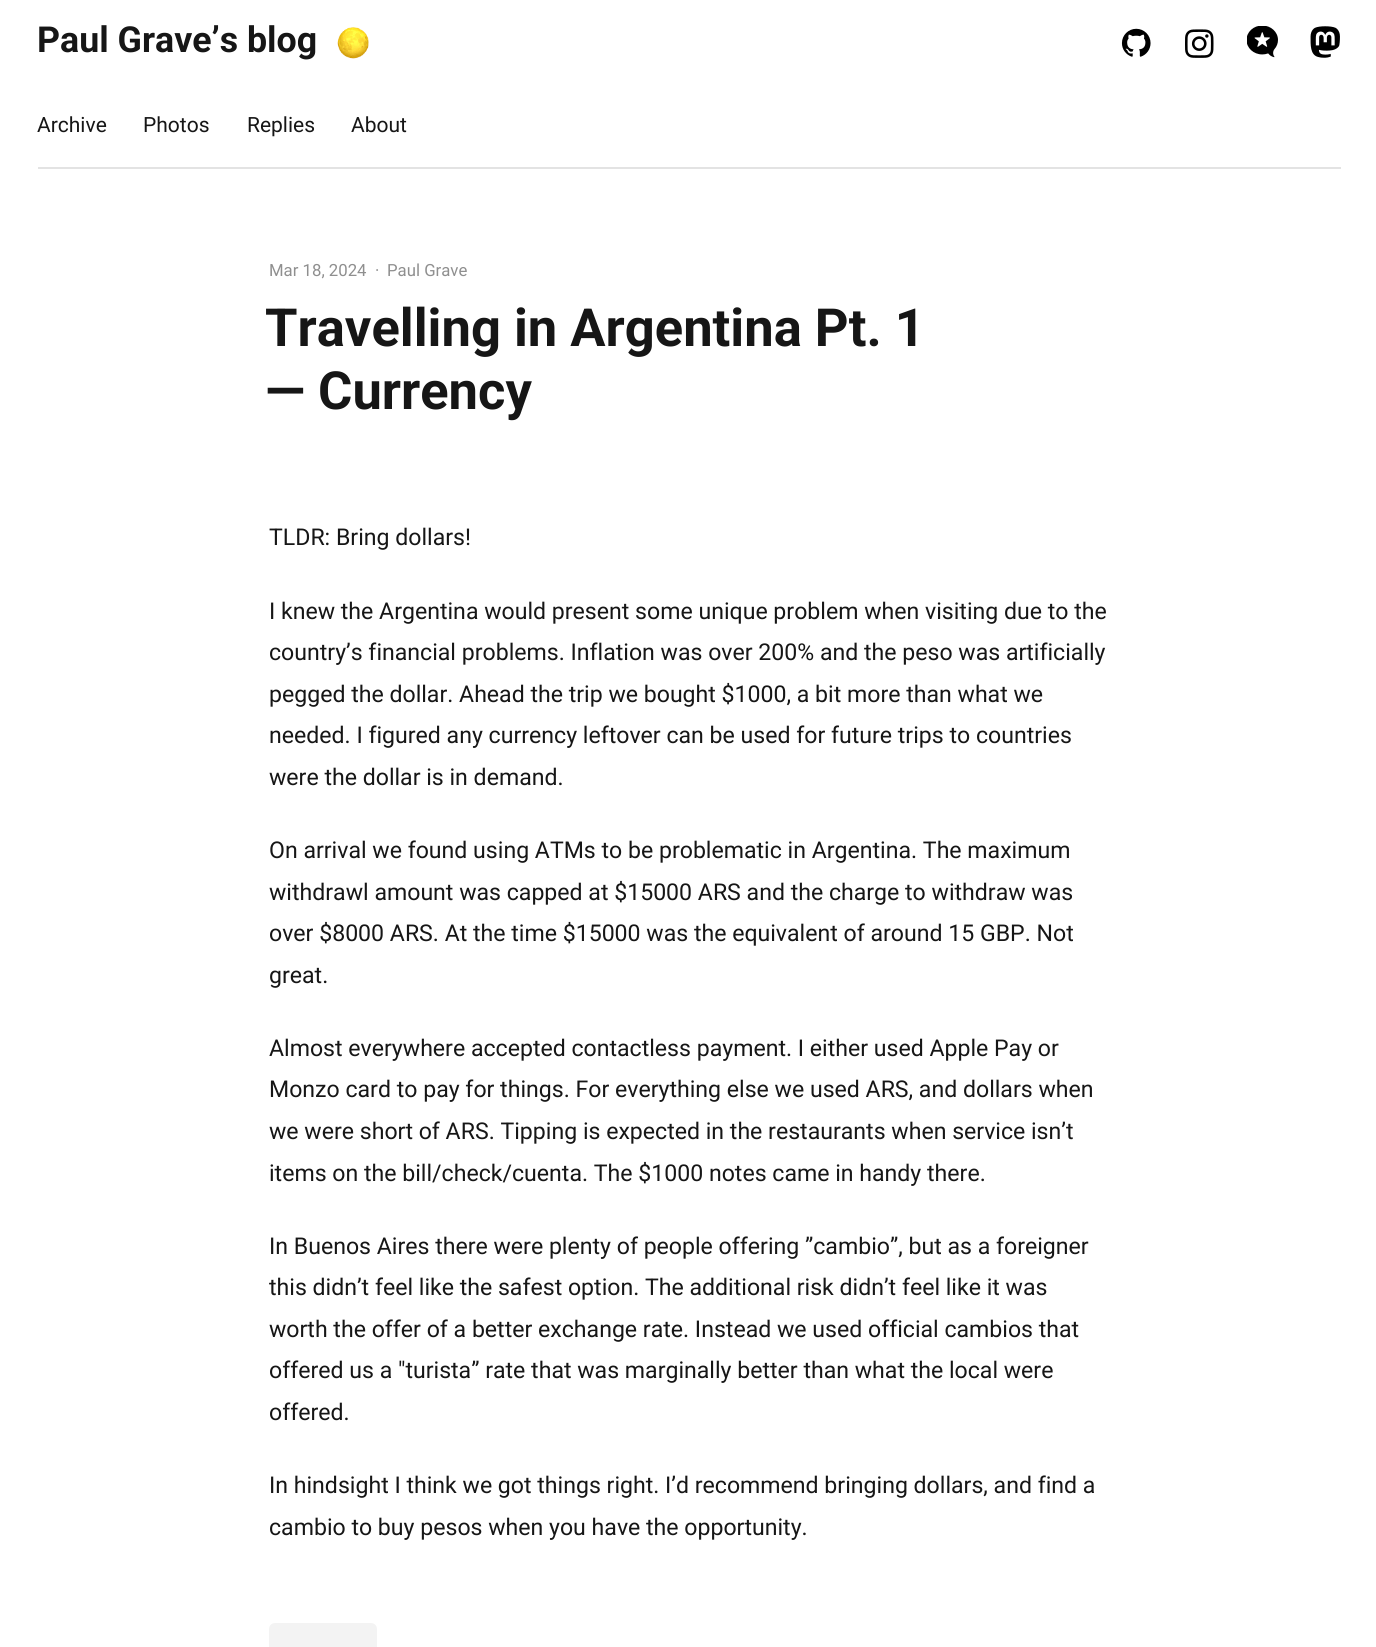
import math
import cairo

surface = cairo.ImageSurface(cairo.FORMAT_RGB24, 1376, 1647)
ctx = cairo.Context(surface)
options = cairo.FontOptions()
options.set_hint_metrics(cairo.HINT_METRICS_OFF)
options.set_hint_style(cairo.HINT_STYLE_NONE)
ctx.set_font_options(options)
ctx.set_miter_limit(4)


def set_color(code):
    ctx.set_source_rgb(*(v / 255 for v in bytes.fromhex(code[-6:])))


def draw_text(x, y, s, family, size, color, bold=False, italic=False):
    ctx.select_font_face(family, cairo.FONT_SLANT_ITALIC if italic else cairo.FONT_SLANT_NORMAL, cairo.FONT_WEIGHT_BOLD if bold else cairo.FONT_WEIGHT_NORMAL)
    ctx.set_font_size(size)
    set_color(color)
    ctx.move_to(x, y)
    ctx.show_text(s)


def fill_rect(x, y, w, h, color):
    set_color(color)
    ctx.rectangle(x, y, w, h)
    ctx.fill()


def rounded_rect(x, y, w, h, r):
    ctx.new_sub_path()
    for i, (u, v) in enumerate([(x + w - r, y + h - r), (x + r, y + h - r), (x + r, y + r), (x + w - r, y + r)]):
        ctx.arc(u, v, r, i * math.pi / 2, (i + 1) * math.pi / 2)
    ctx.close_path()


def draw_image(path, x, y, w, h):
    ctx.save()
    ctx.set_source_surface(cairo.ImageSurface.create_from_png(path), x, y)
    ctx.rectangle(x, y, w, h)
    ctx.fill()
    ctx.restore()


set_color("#ffffff")
ctx.paint()
draw_text(37, 52, "Paul Grave’s blog", "Roboto", 35.75, "#161616", bold=True)
draw_image("assets/img1.png", 337, 27, 32, 32)
draw_image("assets/img2.png", 1121, 28, 30, 29)
draw_image("assets/img3.png", 1185, 29, 29, 29)
draw_image("assets/img4.png", 1247, 26, 31, 32)
draw_image("assets/img5.png", 1310, 26, 30, 32)
fill_rect(38, 167, 1303, 2, "#e3e3e3")
draw_text(37, 132, "Archive", "Roboto", 21, "#161616")
draw_text(143, 132, "Photos", "Roboto", 21, "#161616")
draw_text(247, 132, "Replies", "Roboto", 21, "#161616")
draw_text(351, 132, "About", "Roboto", 21, "#161616")
draw_text(269, 276, "Mar 18, 2024", "Roboto", 16.75, "#8f8f8f")
draw_text(375, 276, "·", "Roboto", 16.75, "#8f8f8f")
draw_text(387, 276, "Paul Grave", "Roboto", 16.75, "#8f8f8f")
draw_text(265, 346, "Travelling in Argentina Pt. 1", "Roboto", 52.5, "#161616", bold=True)
draw_text(265, 409, "— Currency", "Roboto", 52.5, "#161616", bold=True)
draw_text(269, 545, "TLDR: Bring dollars!", "Roboto", 23.1, "#161616")
draw_text(269, 619, "I knew the Argentina would present some unique problem when visiting due to the", "Roboto", 23.1, "#161616")
draw_text(269, 660, "country’s financial problems. Inflation was over 200% and the peso was artificially", "Roboto", 23.1, "#161616")
draw_text(269, 702, "pegged the dollar. Ahead the trip we bought $1000, a bit more than what we", "Roboto", 23.1, "#161616")
draw_text(269, 743, "needed. I figured any currency leftover can be used for future trips to countries", "Roboto", 23.1, "#161616")
draw_text(269, 785, "were the dollar is in demand.", "Roboto", 23.1, "#161616")
draw_text(269, 858, "On arrival we found using ATMs to be problematic in Argentina. The maximum", "Roboto", 23.1, "#161616")
draw_text(269, 900, "withdrawl amount was capped at $15000 ARS and the charge to withdraw was", "Roboto", 23.1, "#161616")
draw_text(269, 941, "over $8000 ARS. At the time $15000 was the equivalent of around 15 GBP. Not", "Roboto", 23.1, "#161616")
draw_text(269, 983, "great.", "Roboto", 23.1, "#161616")
draw_text(269, 1056, "Almost everywhere accepted contactless payment. I either used Apple Pay or", "Roboto", 23.1, "#161616")
draw_text(269, 1097, "Monzo card to pay for things. For everything else we used ARS, and dollars when", "Roboto", 23.1, "#161616")
draw_text(269, 1139, "we were short of ARS. Tipping is expected in the restaurants when service isn’t", "Roboto", 23.1, "#161616")
draw_text(269, 1181, "items on the bill/check/cuenta. The $1000 notes came in handy there.", "Roboto", 23.1, "#161616")
draw_text(269, 1254, "In Buenos Aires there were plenty of people offering ”cambio”, but as a foreigner", "Roboto", 23.1, "#161616")
draw_text(269, 1295, "this didn’t feel like the safest option. The additional risk didn’t feel like it was", "Roboto", 23.1, "#161616")
draw_text(269, 1337, "worth the offer of a better exchange rate. Instead we used official cambios that", "Roboto", 23.1, "#161616")
draw_text(269, 1378, "offered us a \"turista” rate that was marginally better than what the local were", "Roboto", 23.1, "#161616")
draw_text(269, 1420, "offered.", "Roboto", 23.1, "#161616")
draw_text(269, 1493, "In hindsight I think we got things right. I’d recommend bringing dollars, and find a", "Roboto", 23.1, "#161616")
draw_text(269, 1535, "cambio to buy pesos when you have the opportunity.", "Roboto", 23.1, "#161616")
set_color("#f3f3f3")
rounded_rect(269, 1623, 108, 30, 6)
ctx.fill()
surface.write_to_png("output.png")
